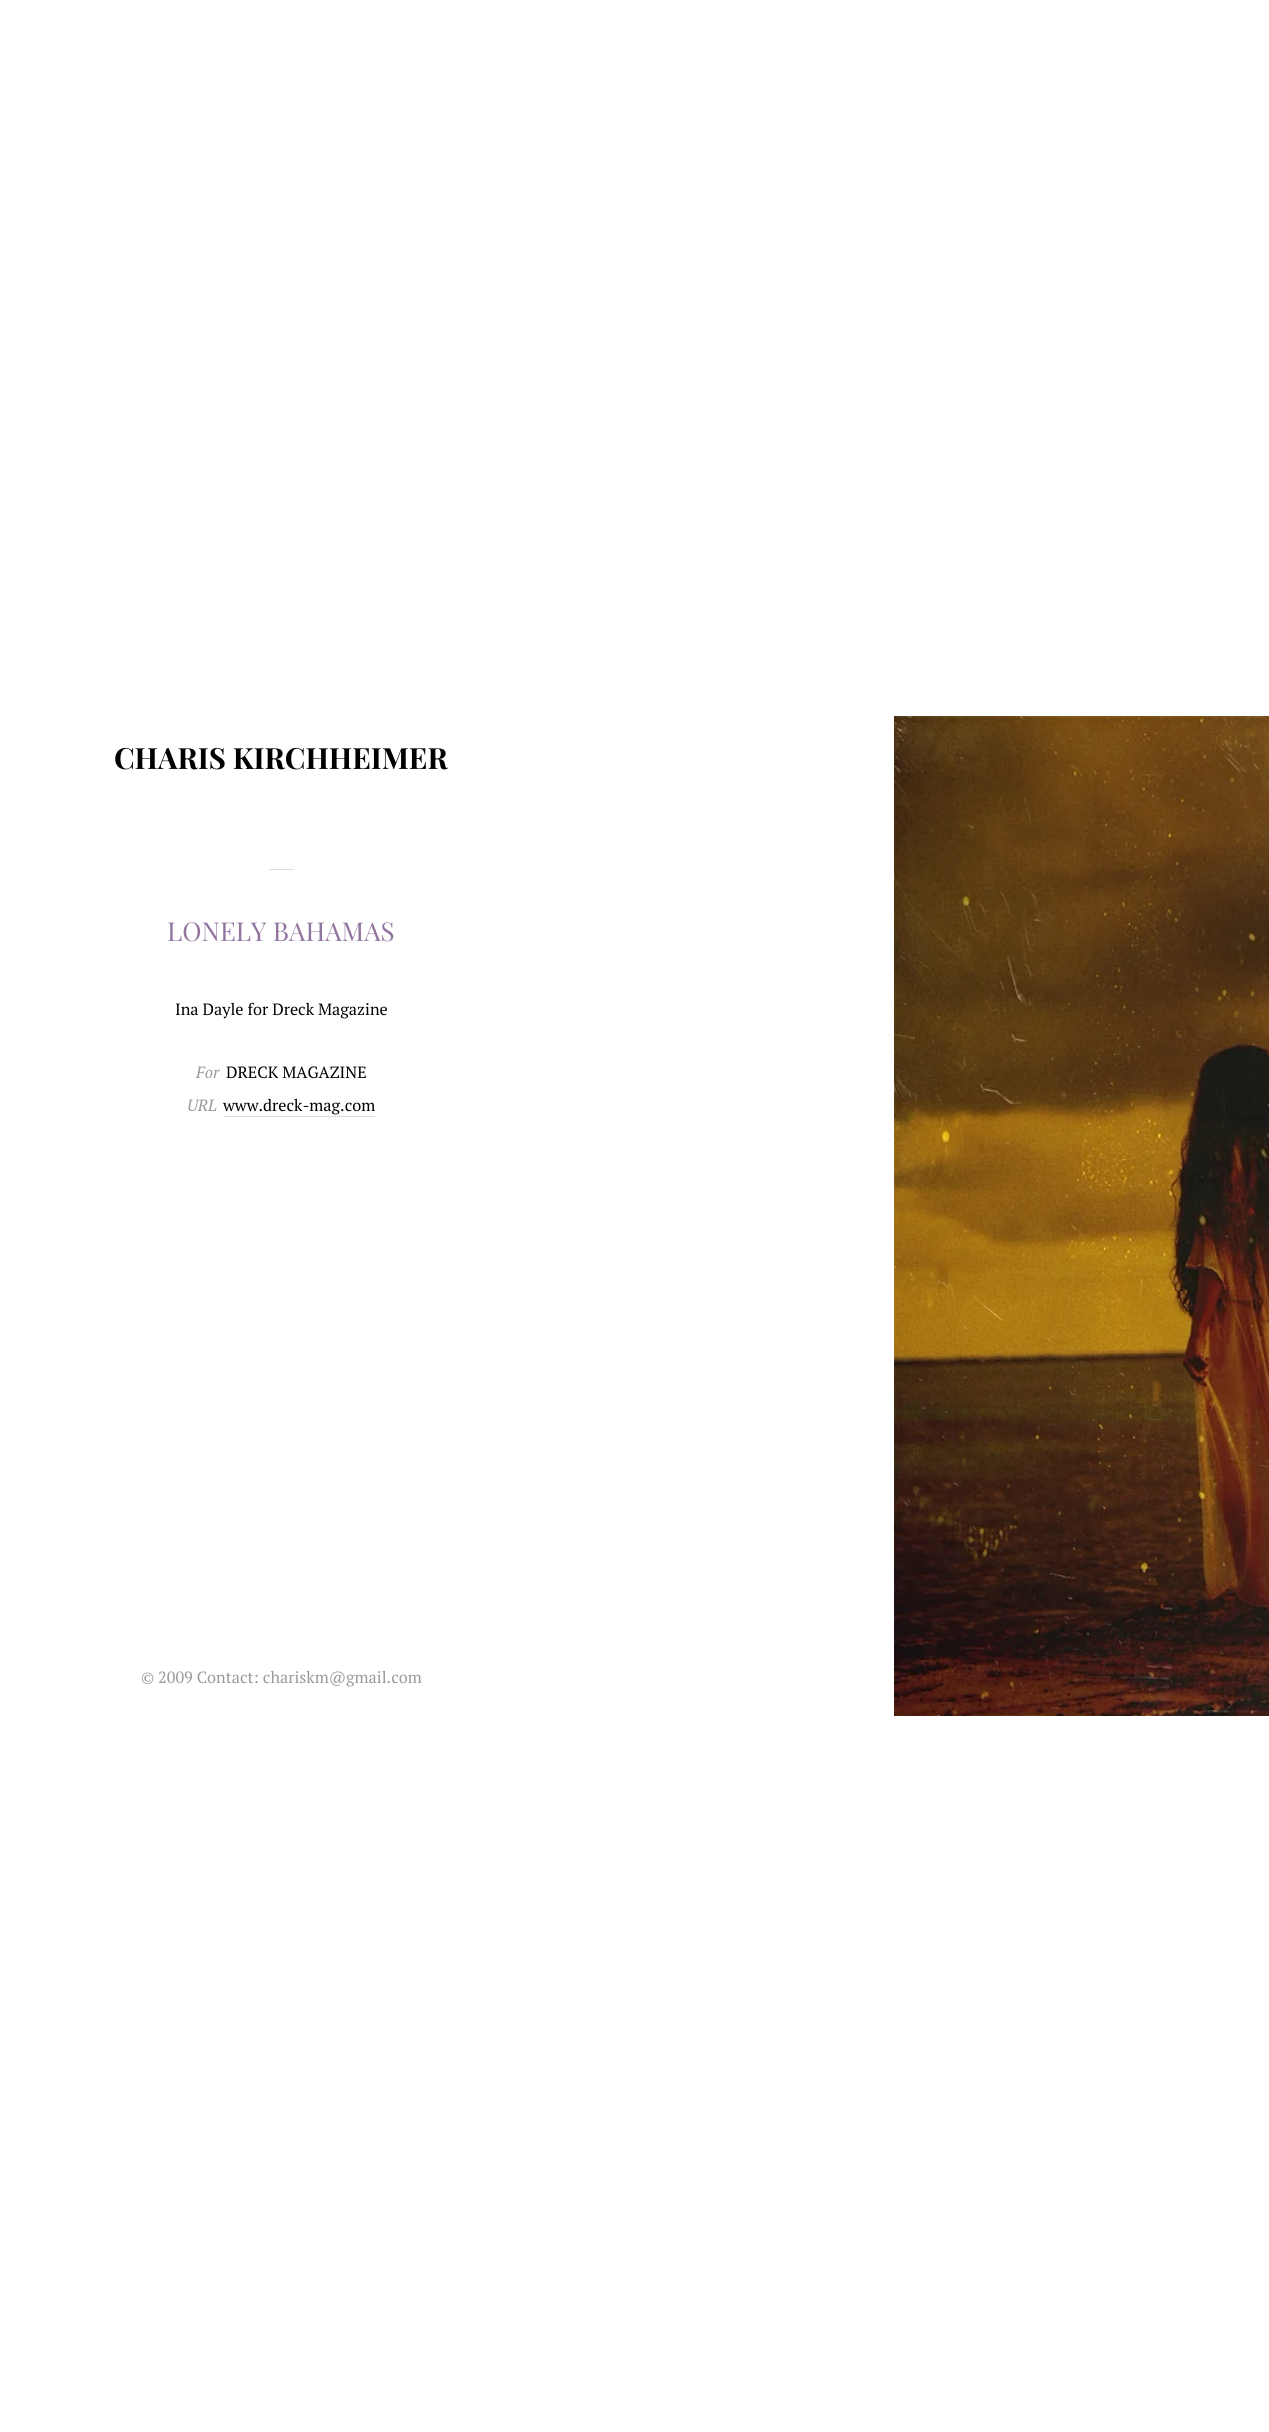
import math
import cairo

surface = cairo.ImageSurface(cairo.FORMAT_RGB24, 1269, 2432)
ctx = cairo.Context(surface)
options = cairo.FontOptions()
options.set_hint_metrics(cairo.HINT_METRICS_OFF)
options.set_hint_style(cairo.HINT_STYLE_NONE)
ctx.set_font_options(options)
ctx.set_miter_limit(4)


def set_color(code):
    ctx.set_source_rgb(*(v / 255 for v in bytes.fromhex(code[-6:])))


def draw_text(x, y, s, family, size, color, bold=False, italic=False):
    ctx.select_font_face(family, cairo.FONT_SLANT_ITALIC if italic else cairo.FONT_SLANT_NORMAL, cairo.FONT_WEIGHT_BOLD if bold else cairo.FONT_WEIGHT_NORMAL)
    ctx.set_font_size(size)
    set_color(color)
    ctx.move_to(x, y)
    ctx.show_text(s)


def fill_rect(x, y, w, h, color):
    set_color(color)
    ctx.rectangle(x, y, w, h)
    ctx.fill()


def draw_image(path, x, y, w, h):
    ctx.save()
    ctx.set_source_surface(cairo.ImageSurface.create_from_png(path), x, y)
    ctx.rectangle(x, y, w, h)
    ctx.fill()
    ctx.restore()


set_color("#ffffff")
ctx.paint()
draw_text(114, 769, "CHARIS KIRCHHEIMER", "Playfair Display", 29.25, "#000000", bold=True)
fill_rect(269, 869, 25, 1, "#dddddd")
draw_text(167, 941, "LONELY BAHAMAS", "Playfair Display", 26, "#91759f")
draw_text(175, 1015, "Ina Dayle for Dreck Magazine", "PT Serif", 16.25, "#000000")
draw_text(196, 1078, "For", "PT Serif", 16.25, "#999999", italic=True)
draw_text(226, 1078, "DRECK MAGAZINE", "PT Serif", 16.25, "#000000")
draw_text(187, 1111, "URL", "PT Serif", 16.25, "#999999", italic=True)
draw_text(223, 1111, "www.dreck-mag.com", "PT Serif", 16.25, "#000000")
fill_rect(224, 1116, 151, 1, "#dddddd")
draw_text(141, 1683, "© 2009 Contact: chariskm@gmail.com", "PT Serif", 16.25, "#999999")
draw_image("assets/img1.png", 894, 716, 375, 1000)
surface.write_to_png("output.png")
